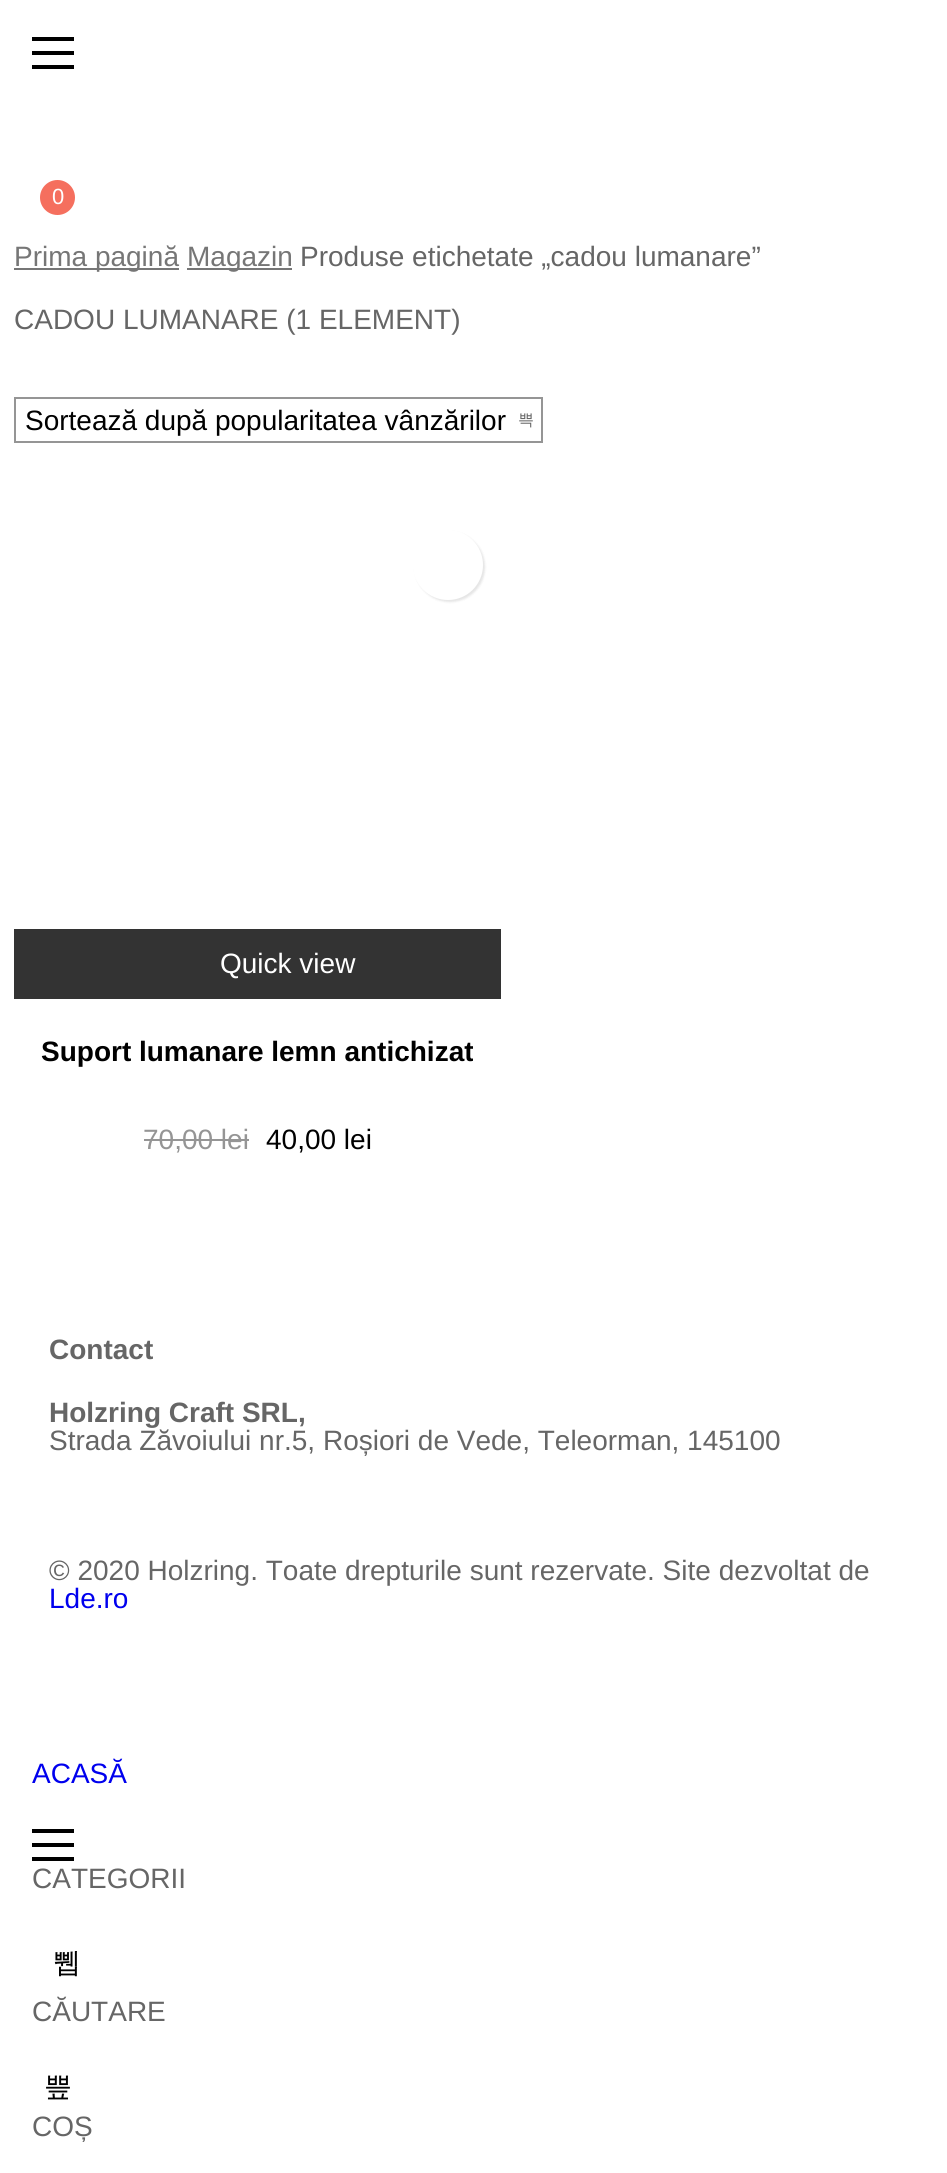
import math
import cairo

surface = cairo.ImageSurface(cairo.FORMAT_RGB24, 947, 2173)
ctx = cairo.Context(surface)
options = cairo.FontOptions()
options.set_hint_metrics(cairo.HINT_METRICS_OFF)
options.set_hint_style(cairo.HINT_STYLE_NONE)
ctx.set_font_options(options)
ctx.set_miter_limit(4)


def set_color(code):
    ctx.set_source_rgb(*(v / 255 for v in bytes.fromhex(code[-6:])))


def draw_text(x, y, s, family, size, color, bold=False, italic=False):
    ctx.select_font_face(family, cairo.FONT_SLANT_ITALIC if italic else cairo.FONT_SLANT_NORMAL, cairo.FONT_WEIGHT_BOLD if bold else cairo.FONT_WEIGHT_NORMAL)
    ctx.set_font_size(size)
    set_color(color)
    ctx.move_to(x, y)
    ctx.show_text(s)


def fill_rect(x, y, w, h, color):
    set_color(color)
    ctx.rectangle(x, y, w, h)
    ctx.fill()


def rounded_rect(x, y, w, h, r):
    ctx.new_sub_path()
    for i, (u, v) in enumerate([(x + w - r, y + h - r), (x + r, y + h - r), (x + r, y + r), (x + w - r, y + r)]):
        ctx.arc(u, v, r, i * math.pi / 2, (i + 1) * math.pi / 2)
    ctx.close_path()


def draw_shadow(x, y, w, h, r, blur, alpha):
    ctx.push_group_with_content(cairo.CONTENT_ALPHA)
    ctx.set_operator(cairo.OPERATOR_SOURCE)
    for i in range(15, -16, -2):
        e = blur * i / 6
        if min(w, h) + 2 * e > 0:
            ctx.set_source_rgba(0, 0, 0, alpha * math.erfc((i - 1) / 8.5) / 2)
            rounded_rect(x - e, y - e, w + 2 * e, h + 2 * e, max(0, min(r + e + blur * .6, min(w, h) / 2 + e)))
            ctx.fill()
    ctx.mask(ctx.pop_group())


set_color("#ffffff")
ctx.paint()
fill_rect(32, 51, 42, 4, "#000000")
fill_rect(32, 37, 42, 4, "#000000")
fill_rect(32, 65, 42, 4, "#000000")
set_color("#f56f5e")
ctx.arc(57.5, 197.5, 17.5, 0, 2 * math.pi)
ctx.fill()
draw_text(52, 204, "0", "Liberation Sans", 22, "#ffffff")
fill_rect(14, 268, 165, 2, "#767676")
draw_text(14, 266, "Prima pagină", "Liberation Sans", 28, "#767676")
fill_rect(187, 268, 105, 2, "#767676")
draw_text(187, 266, "Magazin", "Liberation Sans", 28, "#767676")
draw_text(300, 266, "Produse etichetate „cadou lumanare”", "Liberation Sans", 28, "#666666")
draw_text(14, 329, "CADOU LUMANARE (1 ELEMENT)", "Liberation Sans", 28, "#666666")
ctx.rectangle(15, 398, 527, 44)
set_color("#959595")
ctx.stroke()
draw_text(25, 430, "Sortează după popularitatea vânzărilor", "Liberation Sans", 28, "#000000")
draw_text(518, 425, "쁙", "WenQuanYi Zen Hei Medium", 16, "#666666")
set_color("#000000")
draw_shadow(415, 532, 70, 70, 35, 1, 0.1)
set_color("#ffffff")
ctx.arc(448, 565, 35, 0, 2 * math.pi)
ctx.fill()
fill_rect(14, 929, 487, 70, "#333333")
draw_text(220, 973, "Quick view", "Liberation Sans", 28, "#ffffff")
draw_text(41, 1061, "Suport lumanare lemn antichizat", "Liberation Sans", 28, "#000000", bold=True)
draw_text(143, 1149, "70,00 lei", "Liberation Sans", 28, "#959595")
fill_rect(144, 1139, 105, 2, "#959595")
draw_text(266, 1149, "40,00 lei", "Liberation Sans", 28, "#000000")
draw_text(49, 1359, "Contact", "Liberation Sans", 28, "#666666", bold=True)
draw_text(49, 1422, "Holzring Craft SRL,", "Liberation Sans", 28, "#666666", bold=True)
draw_text(49, 1450, "Strada Zăvoiului nr.5, Roșiori de Vede, Teleorman, 145100", "Liberation Sans", 28, "#666666")
draw_text(49, 1580, "© 2020 Holzring. Toate drepturile sunt rezervate. Site dezvoltat de", "Liberation Sans", 28, "#666666")
draw_text(49, 1608, "Lde.ro", "Liberation Sans", 28, "#0000ee")
draw_text(32, 1783, "ACASĂ", "Liberation Sans", 28, "#0000ee")
fill_rect(32, 1843, 42, 4, "#000000")
fill_rect(32, 1829, 42, 4, "#000000")
fill_rect(32, 1857, 42, 4, "#000000")
draw_text(32, 1888, "CATEGORII", "Liberation Sans", 28, "#666666")
draw_text(53, 1972, "쀕", "WenQuanYi Zen Hei Medium", 28, "#000000")
draw_text(32, 2021, "CĂUTARE", "Liberation Sans", 28, "#666666")
draw_text(44, 2096, "쁲", "WenQuanYi Zen Hei Medium", 28, "#000000")
draw_text(32, 2136, "COȘ", "Liberation Sans", 28, "#666666")
surface.write_to_png("output.png")
